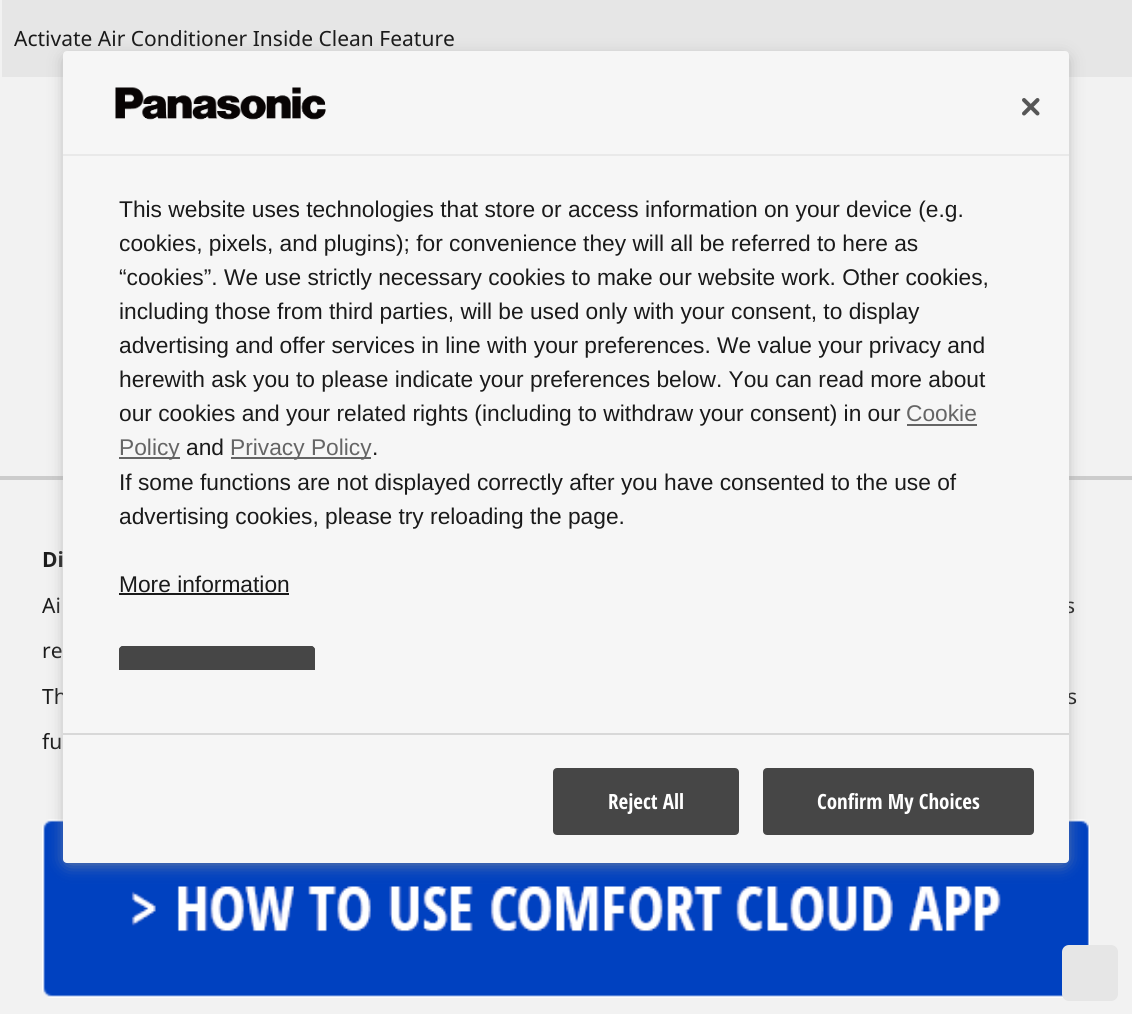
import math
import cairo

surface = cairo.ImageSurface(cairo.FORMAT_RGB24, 1132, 1014)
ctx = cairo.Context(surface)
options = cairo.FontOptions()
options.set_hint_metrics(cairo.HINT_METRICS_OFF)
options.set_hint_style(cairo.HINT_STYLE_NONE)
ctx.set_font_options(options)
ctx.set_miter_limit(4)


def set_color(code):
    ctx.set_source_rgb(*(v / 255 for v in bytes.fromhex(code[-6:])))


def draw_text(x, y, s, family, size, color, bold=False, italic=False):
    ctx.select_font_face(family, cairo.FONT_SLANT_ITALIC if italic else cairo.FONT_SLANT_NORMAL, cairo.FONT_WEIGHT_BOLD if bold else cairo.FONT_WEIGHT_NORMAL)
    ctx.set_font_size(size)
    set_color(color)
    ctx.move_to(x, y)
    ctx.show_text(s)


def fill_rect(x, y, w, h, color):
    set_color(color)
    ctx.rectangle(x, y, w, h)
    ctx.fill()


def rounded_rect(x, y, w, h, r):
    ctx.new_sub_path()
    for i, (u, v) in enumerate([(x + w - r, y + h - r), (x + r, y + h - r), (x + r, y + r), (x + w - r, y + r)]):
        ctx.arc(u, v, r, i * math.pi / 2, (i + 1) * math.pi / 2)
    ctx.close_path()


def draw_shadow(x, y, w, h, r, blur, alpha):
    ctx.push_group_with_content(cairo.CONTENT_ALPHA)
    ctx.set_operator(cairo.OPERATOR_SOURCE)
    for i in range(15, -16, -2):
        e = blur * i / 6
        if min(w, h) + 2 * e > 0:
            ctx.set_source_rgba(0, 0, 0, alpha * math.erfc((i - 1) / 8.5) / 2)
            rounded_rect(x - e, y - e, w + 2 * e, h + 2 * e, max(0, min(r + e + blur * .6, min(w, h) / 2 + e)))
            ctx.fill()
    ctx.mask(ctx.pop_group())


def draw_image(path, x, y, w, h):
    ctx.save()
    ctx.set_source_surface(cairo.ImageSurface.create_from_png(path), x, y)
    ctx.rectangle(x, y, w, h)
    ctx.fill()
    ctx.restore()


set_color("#f2f2f2")
ctx.paint()
fill_rect(2, 0, 1130, 77, "#e6e6e6")
draw_text(14, 46, "Activate Air Conditioner Inside Clean Feature", "Noto Sans", 21, "#1a1a1a")
fill_rect(0, 476, 1132, 4, "#cccccc")
draw_text(42, 567, "Di", "Noto Sans", 21, "#1a1a1a", bold=True)
draw_text(42, 613, "Ai", "Noto Sans", 21, "#1a1a1a")
draw_text(1065, 613, "s", "Noto Sans", 21, "#1a1a1a")
draw_text(42, 658, "re", "Noto Sans", 21, "#1a1a1a")
draw_text(42, 704, "Th", "Noto Sans", 21, "#1a1a1a")
draw_text(1067, 704, "s", "Noto Sans", 21, "#1a1a1a")
draw_text(42, 749, "fu", "Noto Sans", 21, "#1a1a1a")
draw_image("assets/img1.png", 42, 819, 1048, 179)
set_color("#e6e6e6")
rounded_rect(1062, 945, 56, 56, 7)
ctx.fill()
set_color("#999999")
draw_shadow(68, 60, 996, 801, 0, 9, 1)
set_color("#f6f6f6")
rounded_rect(63, 51, 1006, 812, 4)
ctx.fill()
fill_rect(63, 154, 1006, 2, "#e9e9e9")
draw_image("assets/img2.png", 115, 87, 211, 33)
draw_image("assets/img3.png", 1022, 98, 18, 18)
draw_text(119, 217, "This website uses technologies that store or access information on your device (e.g.", "Liberation Sans", 22.75, "#1a1a1a")
draw_text(119, 251, "cookies, pixels, and plugins); for convenience they will all be referred to here as", "Liberation Sans", 22.75, "#1a1a1a")
draw_text(119, 285, "“cookies”. We use strictly necessary cookies to make our website work. Other cookies,", "Liberation Sans", 22.75, "#1a1a1a")
draw_text(119, 319, "including those from third parties, will be used only with your consent, to display", "Liberation Sans", 22.75, "#1a1a1a")
draw_text(119, 353, "advertising and offer services in line with your preferences. We value your privacy and", "Liberation Sans", 22.75, "#1a1a1a")
draw_text(119, 387, "herewith ask you to please indicate your preferences below. You can read more about", "Liberation Sans", 22.75, "#1a1a1a")
draw_text(119, 421, "our cookies and your related rights (including to withdraw your consent) in our", "Liberation Sans", 22.75, "#1a1a1a")
draw_text(906, 421, "Cookie", "Liberation Sans", 22.75, "#656565")
fill_rect(907, 424, 70, 2, "#656565")
fill_rect(119, 457, 61, 2, "#656565")
draw_text(119, 455, "Policy", "Liberation Sans", 22.75, "#656565")
draw_text(186, 455, "and", "Liberation Sans", 22.75, "#1a1a1a")
fill_rect(231, 457, 140, 2, "#656565")
draw_text(230, 455, "Privacy Policy", "Liberation Sans", 22.75, "#656565")
draw_text(372, 455, ".", "Liberation Sans", 22.75, "#1a1a1a")
draw_text(119, 490, "If some functions are not displayed correctly after you have consented to the use of", "Liberation Sans", 22.75, "#1a1a1a")
draw_text(119, 524, "advertising cookies, please try reloading the page.", "Liberation Sans", 22.75, "#1a1a1a")
draw_text(119, 592, "More information", "Liberation Sans", 22.75, "#1a1a1a")
fill_rect(119, 593, 170, 2, "#1a1a1a")
set_color("#464646")
ctx.new_path()
ctx.move_to(123, 646)
ctx.line_to(311, 646)
ctx.curve_to(313, 646, 315, 648, 315, 650)
ctx.line_to(315, 670)
ctx.line_to(119, 670)
ctx.line_to(119, 650)
ctx.curve_to(119, 648, 121, 646, 123, 646)
ctx.close_path()
ctx.fill()
ctx.save()
ctx.rectangle(116, 158, 952, 512)
ctx.clip()
rounded_rect(120, 647, 194, 68, 3)
ctx.stroke()
ctx.restore()
fill_rect(63, 733, 1006, 2, "#d8d8d8")
set_color("#464646")
rounded_rect(554, 769, 184, 65, 3)
ctx.fill_preserve()
ctx.stroke()
draw_text(608, 809, "Reject All", "Open Sans Condensed", 21, "#ffffff", bold=True)
set_color("#464646")
rounded_rect(764, 769, 269, 65, 3)
ctx.fill_preserve()
ctx.stroke()
draw_text(817, 809, "Confirm My Choices", "Open Sans Condensed", 21, "#ffffff", bold=True)
surface.write_to_png("output.png")
